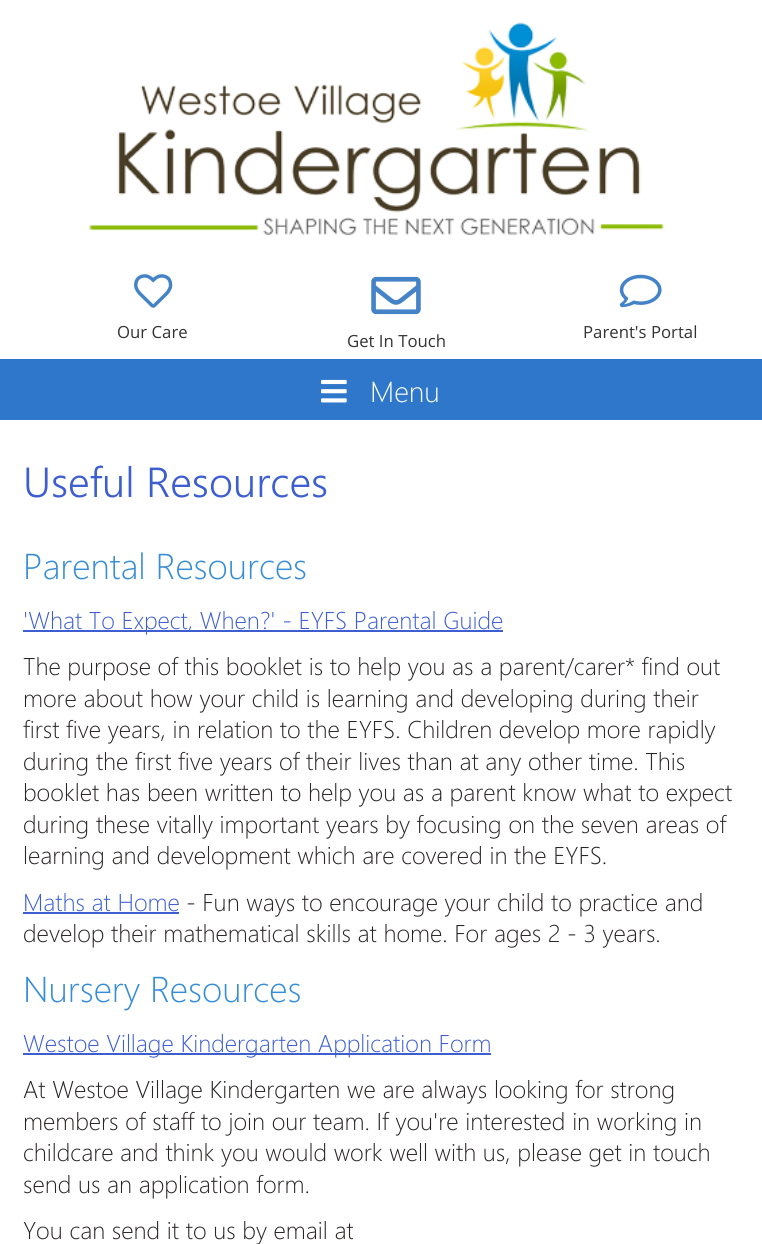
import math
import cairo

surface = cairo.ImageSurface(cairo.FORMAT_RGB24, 762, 1244)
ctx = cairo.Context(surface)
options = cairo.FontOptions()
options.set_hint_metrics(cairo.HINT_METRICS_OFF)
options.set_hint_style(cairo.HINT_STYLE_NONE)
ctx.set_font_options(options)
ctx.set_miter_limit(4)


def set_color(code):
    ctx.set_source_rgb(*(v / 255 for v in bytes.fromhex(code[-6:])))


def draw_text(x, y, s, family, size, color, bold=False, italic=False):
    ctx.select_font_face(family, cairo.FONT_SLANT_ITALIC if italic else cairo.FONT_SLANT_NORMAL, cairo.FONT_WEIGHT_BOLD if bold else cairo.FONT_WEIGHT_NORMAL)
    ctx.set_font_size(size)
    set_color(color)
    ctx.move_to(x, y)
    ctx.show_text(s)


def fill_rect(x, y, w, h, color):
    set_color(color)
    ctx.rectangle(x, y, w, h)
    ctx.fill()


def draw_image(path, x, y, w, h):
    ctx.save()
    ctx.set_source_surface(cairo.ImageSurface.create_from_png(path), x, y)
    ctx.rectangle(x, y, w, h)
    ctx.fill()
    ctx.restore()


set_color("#ffffff")
ctx.paint()
draw_image("assets/img1.png", 89, 22, 575, 214)
draw_image("assets/img2.png", 134, 274, 39, 34)
draw_text(117, 338, "Our Care", "Open Sans", 16.75, "#333333")
draw_image("assets/img3.png", 619, 274, 43, 34)
draw_text(583, 338, "Parent's Portal", "Open Sans", 16.75, "#333333")
draw_image("assets/img4.png", 371, 276, 50, 39)
draw_text(347, 347, "Get In Touch", "Open Sans", 16.75, "#333333")
fill_rect(0, 359, 762, 61, "#2e77cb")
draw_image("assets/img5.png", 321, 379, 26, 24)
draw_text(370, 402, "Menu", "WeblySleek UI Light", 29, "#ffffff")
draw_text(23, 497, "Useful Resources", "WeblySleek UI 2 Light", 42, "#3d5ed1")
draw_text(23, 579, "Parental Resources", "WeblySleek UI Light", 36, "#368dd7")
fill_rect(23, 630, 480, 2, "#3d5ed1")
draw_text(23, 629, "'What To Expect, When?' - EYFS Parental Guide", "WeblySleek UI Light", 24.3, "#3d5ed1")
draw_text(23, 675, "The purpose of this booklet is to help you as a parent/carer* find out", "WeblySleek UI Light", 24.3, "#2a2525")
draw_text(23, 707, "more about how your child is learning and developing during their", "WeblySleek UI Light", 24.3, "#2a2525")
draw_text(23, 738, "first five years, in relation to the EYFS. Children develop more rapidly", "WeblySleek UI Light", 24.3, "#2a2525")
draw_text(23, 770, "during the first five years of their lives than at any other time. This", "WeblySleek UI Light", 24.3, "#2a2525")
draw_text(23, 801, "booklet has been written to help you as a parent know what to expect", "WeblySleek UI Light", 24.3, "#2a2525")
draw_text(23, 833, "during these vitally important years by focusing on the seven areas of", "WeblySleek UI Light", 24.3, "#2a2525")
draw_text(23, 864, "learning and development which are covered in the EYFS.", "WeblySleek UI Light", 24.3, "#2a2525")
draw_text(23, 911, "Maths at Home", "WeblySleek UI Light", 24.3, "#3d5ed1")
fill_rect(23, 912, 156, 2, "#3d5ed1")
draw_text(186, 911, "- Fun ways to encourage your child to practice and", "WeblySleek UI Light", 24.3, "#2a2525")
draw_text(23, 942, "develop their mathematical skills at home. For ages 2 - 3 years.", "WeblySleek UI Light", 24.3, "#2a2525")
draw_text(23, 1002, "Nursery Resources", "WeblySleek UI Light", 36, "#368dd7")
fill_rect(23, 1053, 468, 2, "#3d5ed1")
draw_text(23, 1052, "Westoe Village Kindergarten Application Form", "WeblySleek UI Light", 24.3, "#3d5ed1")
draw_text(23, 1098, "At Westoe Village Kindergarten we are always looking for strong", "WeblySleek UI Light", 24.3, "#2a2525")
draw_text(23, 1130, "members of staff to join our team. If you're interested in working in", "WeblySleek UI Light", 24.3, "#2a2525")
draw_text(23, 1161, "childcare and think you would work well with us, please get in touch", "WeblySleek UI Light", 24.3, "#2a2525")
draw_text(23, 1193, "send us an application form.", "WeblySleek UI Light", 24.3, "#2a2525")
draw_text(23, 1239, "You can send it to us by email at", "WeblySleek UI Light", 24.3, "#2a2525")
surface.write_to_png("output.png")
